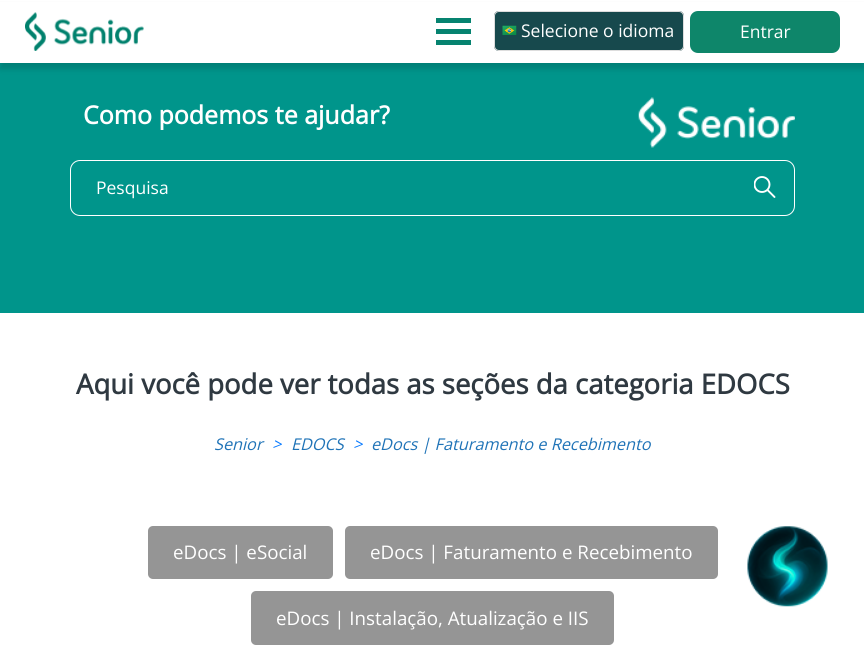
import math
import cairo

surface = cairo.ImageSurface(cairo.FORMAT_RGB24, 864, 649)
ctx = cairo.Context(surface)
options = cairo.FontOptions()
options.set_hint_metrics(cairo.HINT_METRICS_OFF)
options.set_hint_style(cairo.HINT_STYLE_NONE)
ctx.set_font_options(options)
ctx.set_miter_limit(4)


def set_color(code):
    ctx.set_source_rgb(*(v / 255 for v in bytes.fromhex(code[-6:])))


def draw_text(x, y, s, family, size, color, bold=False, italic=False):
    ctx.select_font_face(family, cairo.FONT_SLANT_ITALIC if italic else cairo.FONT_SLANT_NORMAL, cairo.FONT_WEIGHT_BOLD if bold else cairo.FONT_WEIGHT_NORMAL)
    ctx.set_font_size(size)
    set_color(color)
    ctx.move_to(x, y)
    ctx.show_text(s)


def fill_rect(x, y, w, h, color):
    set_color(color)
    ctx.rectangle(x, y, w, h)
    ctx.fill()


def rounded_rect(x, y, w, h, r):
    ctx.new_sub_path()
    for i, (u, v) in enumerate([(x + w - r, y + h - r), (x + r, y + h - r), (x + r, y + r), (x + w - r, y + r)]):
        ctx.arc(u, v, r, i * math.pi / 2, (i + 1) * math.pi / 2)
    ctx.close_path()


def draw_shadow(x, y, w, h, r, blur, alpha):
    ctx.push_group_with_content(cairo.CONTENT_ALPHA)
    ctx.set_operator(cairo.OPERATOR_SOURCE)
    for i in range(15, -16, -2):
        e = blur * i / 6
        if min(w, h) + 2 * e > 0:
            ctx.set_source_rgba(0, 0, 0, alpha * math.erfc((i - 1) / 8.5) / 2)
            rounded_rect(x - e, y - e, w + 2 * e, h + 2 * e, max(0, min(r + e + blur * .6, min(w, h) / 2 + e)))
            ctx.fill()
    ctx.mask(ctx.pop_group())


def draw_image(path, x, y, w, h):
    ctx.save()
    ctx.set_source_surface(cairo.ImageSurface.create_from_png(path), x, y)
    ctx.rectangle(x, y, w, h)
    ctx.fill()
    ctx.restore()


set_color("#ffffff")
ctx.paint()
fill_rect(0, 63, 864, 250, "#00958b")
set_color("#000000")
draw_shadow(0, 6, 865, 63, 0, 3, 0.15)
fill_rect(0, 2, 864, 61, "#ffffff")
draw_image("assets/img1.png", 25, 12, 119, 39)
fill_rect(436, 18, 35, 5, "#068370")
fill_rect(436, 29, 35, 5, "#068370")
fill_rect(436, 40, 35, 5, "#068370")
set_color("#17494d")
rounded_rect(494, 11, 190, 40, 5)
ctx.fill()
draw_image("assets/img2.png", 502, 25, 15, 10)
rounded_rect(494.5, 11.5, 189, 39, 4.5)
set_color("#dddddd")
ctx.set_line_width(1)
ctx.stroke()
draw_text(521, 37, "Selecione o idioma", "Open Sans", 17.5, "#ffffff")
set_color("#0e866a")
rounded_rect(690, 11, 150, 42, 8)
ctx.fill()
draw_text(740, 38, "Entrar", "Open Sans", 17.5, "#ffffff")
draw_text(83, 124, "Como podemos te ajudar?", "Open Sans", 25, "#ffffff", bold=True)
draw_image("assets/img3.png", 638, 97, 157, 51)
rounded_rect(70.5, 160.5, 724, 55, 9.5)
ctx.stroke()
draw_text(96, 194, "Pesquisa", "Open Sans", 17.5, "#ffffff")
ctx.save()
ctx.rectangle(754, 176, 22, 23)
ctx.clip()
ctx.arc(762, 184.5, 7.5, 0, 2 * math.pi)
ctx.set_line_width(1.9)
ctx.stroke()
ctx.restore()
ctx.new_path()
ctx.move_to(774.5, 197)
ctx.line_to(768, 190.5)
ctx.set_line_width(1.9)
ctx.set_line_cap(cairo.LINE_CAP_ROUND)
ctx.stroke()
draw_text(76, 394, "Aqui você pode ver todas as seções da categoria EDOCS", "Open Sans", 27.5, "#2f3941", bold=True)
draw_text(214, 450, "Senior", "Open Sans", 16.25, "#1f73b7", italic=True)
draw_text(272, 450, ">", "Open Sans", 16.25, "#097aff", italic=True)
draw_text(291, 450, "EDOCS", "Open Sans", 16.25, "#1f73b7", italic=True)
draw_text(353, 450, ">", "Open Sans", 16.25, "#097aff", italic=True)
draw_text(371, 450, "eDocs | Faturamento e Recebimento", "Open Sans", 16.25, "#1f73b7", italic=True)
set_color("#959595")
rounded_rect(148, 526, 185, 53, 5)
ctx.fill()
draw_text(173, 559, "eDocs | eSocial", "Open Sans", 18.75, "#ffffff")
set_color("#959595")
rounded_rect(345, 526, 373, 53, 5)
ctx.fill()
draw_text(370, 559, "eDocs | Faturamento e Recebimento", "Open Sans", 18.75, "#ffffff")
set_color("#959595")
rounded_rect(251, 591, 363, 54, 5)
ctx.fill()
draw_text(276, 625, "eDocs | Instalação, Atualização e IIS", "Open Sans", 18.75, "#ffffff")
draw_image("assets/img4.png", 747, 526, 81, 81)
surface.write_to_png("output.png")
